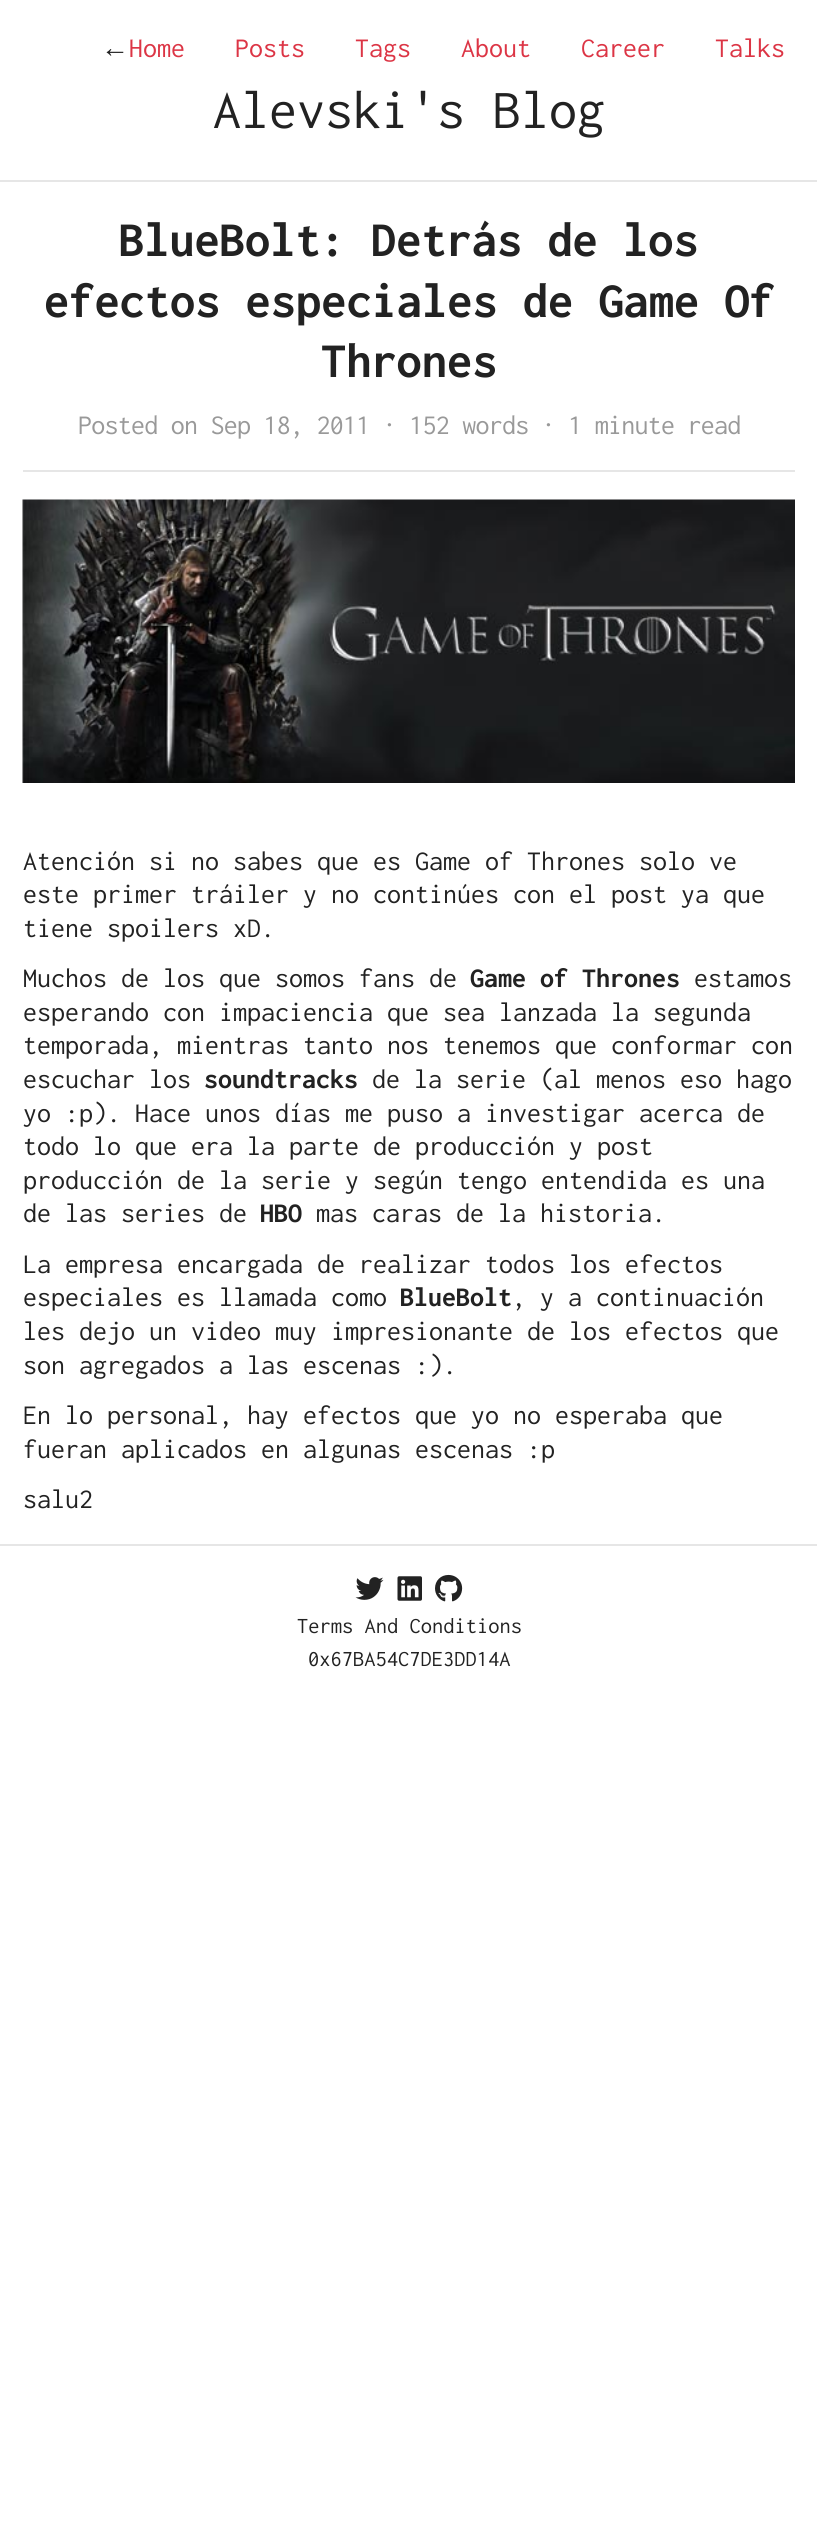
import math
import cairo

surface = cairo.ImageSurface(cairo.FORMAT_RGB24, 817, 2524)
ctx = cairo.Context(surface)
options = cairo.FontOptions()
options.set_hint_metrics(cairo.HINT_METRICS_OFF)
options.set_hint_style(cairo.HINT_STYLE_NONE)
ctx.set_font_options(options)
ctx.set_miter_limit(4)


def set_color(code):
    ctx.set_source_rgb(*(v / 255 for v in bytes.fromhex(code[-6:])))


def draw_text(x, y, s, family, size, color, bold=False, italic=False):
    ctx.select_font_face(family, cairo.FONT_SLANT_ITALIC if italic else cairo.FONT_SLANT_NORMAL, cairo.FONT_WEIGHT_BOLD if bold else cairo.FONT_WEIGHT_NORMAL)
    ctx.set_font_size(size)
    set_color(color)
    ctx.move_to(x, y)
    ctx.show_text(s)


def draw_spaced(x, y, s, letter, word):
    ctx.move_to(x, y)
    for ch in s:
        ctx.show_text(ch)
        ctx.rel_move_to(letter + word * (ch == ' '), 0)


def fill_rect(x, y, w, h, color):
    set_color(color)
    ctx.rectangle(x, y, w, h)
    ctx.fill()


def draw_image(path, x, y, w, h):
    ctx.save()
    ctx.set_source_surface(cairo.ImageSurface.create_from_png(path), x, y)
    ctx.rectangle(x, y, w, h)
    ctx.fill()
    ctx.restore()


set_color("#ffffff")
ctx.paint()
draw_text(101, 57, "←", "Liberation Serif", 28, "#222222")
draw_text(129, 57, "Home", "Inconsolata", 28, "#dc3545")
draw_text(235, 57, "Posts", "Inconsolata", 28, "#dc3545")
draw_text(355, 57, "Tags", "Inconsolata", 28, "#dc3545")
draw_text(461, 57, "About", "Inconsolata", 28, "#dc3545")
draw_text(581, 57, "Career", "Inconsolata", 28, "#dc3545")
draw_text(715, 57, "Talks", "Inconsolata", 28, "#dc3545")
draw_text(213, 128, "Alevski's Blog", "Inconsolata", 56, "#222222")
fill_rect(0, 180, 817, 2, "#e6e6e6")
draw_text(119, 256, "BlueBolt: Detrás de los", "Inconsolata", 50.4, "#222222", bold=True)
draw_text(44, 317, "efectos especiales de Game Of", "Inconsolata", 50.4, "#222222", bold=True)
draw_text(321, 377, "Thrones", "Inconsolata", 50.4, "#222222", bold=True)
ctx.select_font_face("Inconsolata")
ctx.set_font_size(28)
set_color("#999999")
draw_spaced(78, 434, "Posted on Sep 18, 2011 · 152 words · 1 minute read", -0.75, 0)
fill_rect(23, 470, 772, 2, "#e6e6e6")
draw_image("assets/img1.png", 22, 499, 773, 284)
draw_text(23, 870, "Atención si no sabes que es Game of Thrones solo ve", "Inconsolata", 28, "#222222")
draw_text(23, 903, "este primer tráiler y no continúes con el post ya que", "Inconsolata", 28, "#222222")
draw_text(23, 937, "tiene spoilers xD.", "Inconsolata", 28, "#222222")
draw_text(23, 987, "Muchos de los que somos fans de", "Inconsolata", 28, "#222222")
draw_text(470, 987, "Game of Thrones", "Inconsolata", 28, "#222222", bold=True)
draw_text(694, 987, "estamos", "Inconsolata", 28, "#222222")
draw_text(23, 1021, "esperando con impaciencia que sea lanzada la segunda", "Inconsolata", 28, "#222222")
draw_text(23, 1054, "temporada, mientras tanto nos tenemos que conformar con", "Inconsolata", 28, "#222222")
draw_text(23, 1088, "escuchar los", "Inconsolata", 28, "#222222")
draw_text(204, 1088, "soundtracks", "Inconsolata", 28, "#222222", bold=True)
draw_text(372, 1088, "de la serie (al menos eso hago", "Inconsolata", 28, "#222222")
draw_text(23, 1122, "yo :p). Hace unos días me puso a investigar acerca de", "Inconsolata", 28, "#222222")
draw_text(23, 1155, "todo lo que era la parte de producción y post", "Inconsolata", 28, "#222222")
draw_text(23, 1189, "producción de la serie y según tengo entendida es una", "Inconsolata", 28, "#222222")
draw_text(23, 1222, "de las series de", "Inconsolata", 28, "#222222")
draw_text(260, 1222, "HBO", "Inconsolata", 28, "#222222", bold=True)
draw_text(316, 1222, "mas caras de la historia.", "Inconsolata", 28, "#222222")
draw_text(23, 1273, "La empresa encargada de realizar todos los efectos", "Inconsolata", 28, "#222222")
draw_text(23, 1306, "especiales es llamada como", "Inconsolata", 28, "#222222")
draw_text(400, 1306, "BlueBolt", "Inconsolata", 28, "#222222", bold=True)
draw_text(512, 1306, ", y a continuación", "Inconsolata", 28, "#222222")
draw_text(23, 1340, "les dejo un video muy impresionante de los efectos que", "Inconsolata", 28, "#222222")
draw_text(23, 1374, "son agregados a las escenas :).", "Inconsolata", 28, "#222222")
draw_text(23, 1424, "En lo personal, hay efectos que yo no esperaba que", "Inconsolata", 28, "#222222")
draw_text(23, 1458, "fueran aplicados en algunas escenas :p", "Inconsolata", 28, "#222222")
draw_text(23, 1508, "salu2", "Inconsolata", 28, "#222222")
fill_rect(0, 1544, 817, 2, "#e6e6e6")
draw_image("assets/img2.png", 355, 1577, 29, 23)
draw_image("assets/img3.png", 397, 1576, 25, 25)
draw_image("assets/img4.png", 435, 1574, 28, 28)
draw_text(297, 1633, "Terms And Conditions", "Inconsolata", 22.5, "#222222")
draw_text(308, 1666, "0x67BA54C7DE3DD14A", "Inconsolata", 22.5, "#222222")
surface.write_to_png("output.png")
